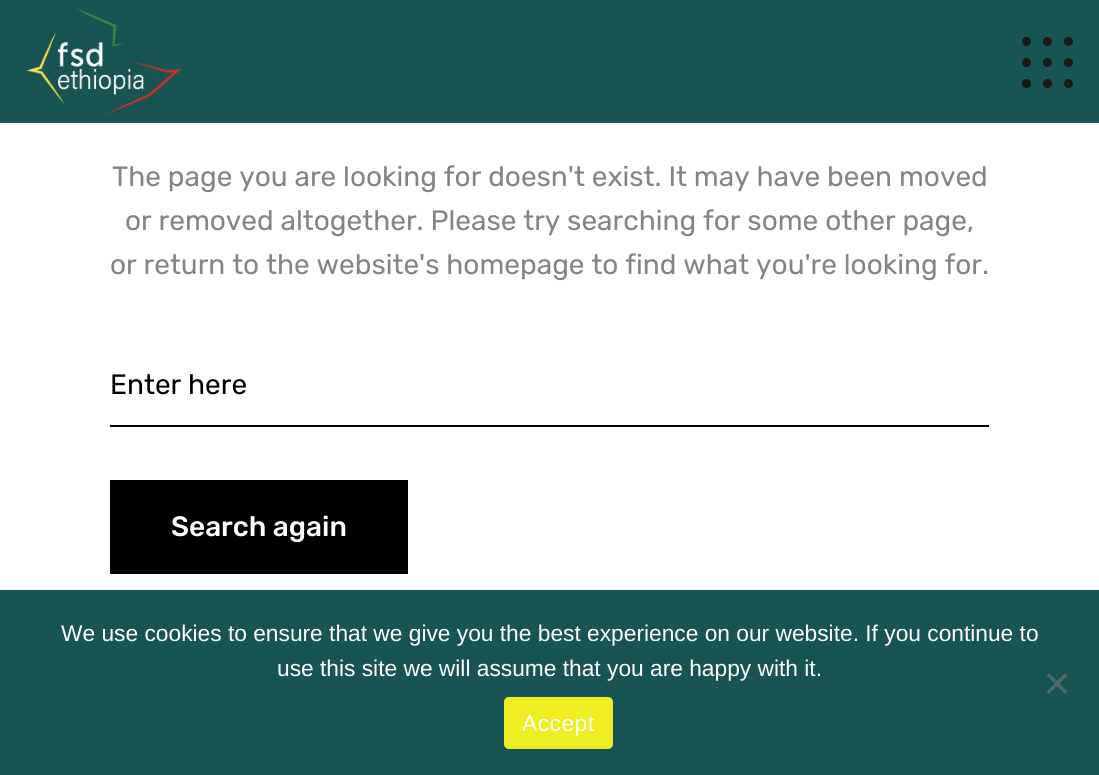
import math
import cairo

surface = cairo.ImageSurface(cairo.FORMAT_RGB24, 1099, 775)
ctx = cairo.Context(surface)
options = cairo.FontOptions()
options.set_hint_metrics(cairo.HINT_METRICS_OFF)
options.set_hint_style(cairo.HINT_STYLE_NONE)
ctx.set_font_options(options)
ctx.set_miter_limit(4)


def set_color(code):
    ctx.set_source_rgb(*(v / 255 for v in bytes.fromhex(code[-6:])))


def draw_text(x, y, s, family, size, color, bold=False, italic=False):
    ctx.select_font_face(family, cairo.FONT_SLANT_ITALIC if italic else cairo.FONT_SLANT_NORMAL, cairo.FONT_WEIGHT_BOLD if bold else cairo.FONT_WEIGHT_NORMAL)
    ctx.set_font_size(size)
    set_color(color)
    ctx.move_to(x, y)
    ctx.show_text(s)


def draw_spaced(x, y, s, letter, word):
    ctx.move_to(x, y)
    for ch in s:
        ctx.show_text(ch)
        ctx.rel_move_to(letter + word * (ch == ' '), 0)


def fill_rect(x, y, w, h, color):
    set_color(color)
    ctx.rectangle(x, y, w, h)
    ctx.fill()


def rounded_rect(x, y, w, h, r):
    ctx.new_sub_path()
    for i, (u, v) in enumerate([(x + w - r, y + h - r), (x + r, y + h - r), (x + r, y + r), (x + w - r, y + r)]):
        ctx.arc(u, v, r, i * math.pi / 2, (i + 1) * math.pi / 2)
    ctx.close_path()


def draw_image(path, x, y, w, h):
    ctx.save()
    ctx.set_source_surface(cairo.ImageSurface.create_from_png(path), x, y)
    ctx.rectangle(x, y, w, h)
    ctx.fill()
    ctx.restore()


set_color("#ffffff")
ctx.paint()
fill_rect(0, 0, 1099, 123, "#185454")
draw_image("assets/img1.png", 26, 9, 156, 106)
set_color("#191919")
ctx.arc(1026.5, 41.5, 4.5, 0, 2 * math.pi)
ctx.fill()
ctx.arc(1047.5, 41.5, 4.5, 0, 2 * math.pi)
ctx.fill()
ctx.arc(1068.5, 41.5, 4.5, 0, 2 * math.pi)
ctx.fill()
ctx.arc(1026.5, 62.5, 4.5, 0, 2 * math.pi)
ctx.fill()
ctx.arc(1047.5, 62.5, 4.5, 0, 2 * math.pi)
ctx.fill()
ctx.arc(1068.5, 62.5, 4.5, 0, 2 * math.pi)
ctx.fill()
ctx.arc(1026.5, 83.5, 4.5, 0, 2 * math.pi)
ctx.fill()
ctx.arc(1047.5, 83.5, 4.5, 0, 2 * math.pi)
ctx.fill()
ctx.arc(1068.5, 83.5, 4.5, 0, 2 * math.pi)
ctx.fill()
draw_text(112, 186, "The page you are looking for doesn't exist. It may have been moved", "Rubik", 28, "#848484")
draw_text(125, 230, "or removed altogether. Please try searching for some other page,", "Rubik", 28, "#848484")
draw_text(110, 274, "or return to the website's homepage to find what you're looking for.", "Rubik", 28, "#848484")
fill_rect(110, 425, 879, 2, "#000000")
draw_text(110, 394, "Enter here", "Rubik", 28, "#000000")
fill_rect(110, 480, 298, 94, "#000000")
draw_text(171, 536, "Search again", "Rubik Medium", 28, "#ffffff")
fill_rect(0, 590, 1099, 185, "#185454")
draw_text(61, 641, "We use cookies to ensure that we give you the best experience on our website. If you continue to", "Liberation Sans", 22.75, "#ffffff")
draw_text(277, 676, "use this site we will assume that you are happy with it.", "Liberation Sans", 22.75, "#ffffff")
set_color("#4c6a6a")
ctx.new_path()
ctx.move_to(1065, 673)
ctx.line_to(1067.5, 675.5)
ctx.line_to(1049, 694)
ctx.line_to(1046.5, 691.5)
ctx.close_path()
ctx.fill()
ctx.new_path()
ctx.move_to(1046.5, 675.5)
ctx.line_to(1049, 673)
ctx.line_to(1067.5, 691.5)
ctx.line_to(1065, 694)
ctx.close_path()
ctx.fill()
set_color("#eeee22")
rounded_rect(504, 697, 109, 52, 5)
ctx.fill()
set_color("#ffffff")
draw_spaced(522, 731, "Accept", 0.5, 0)
surface.write_to_png("output.png")
